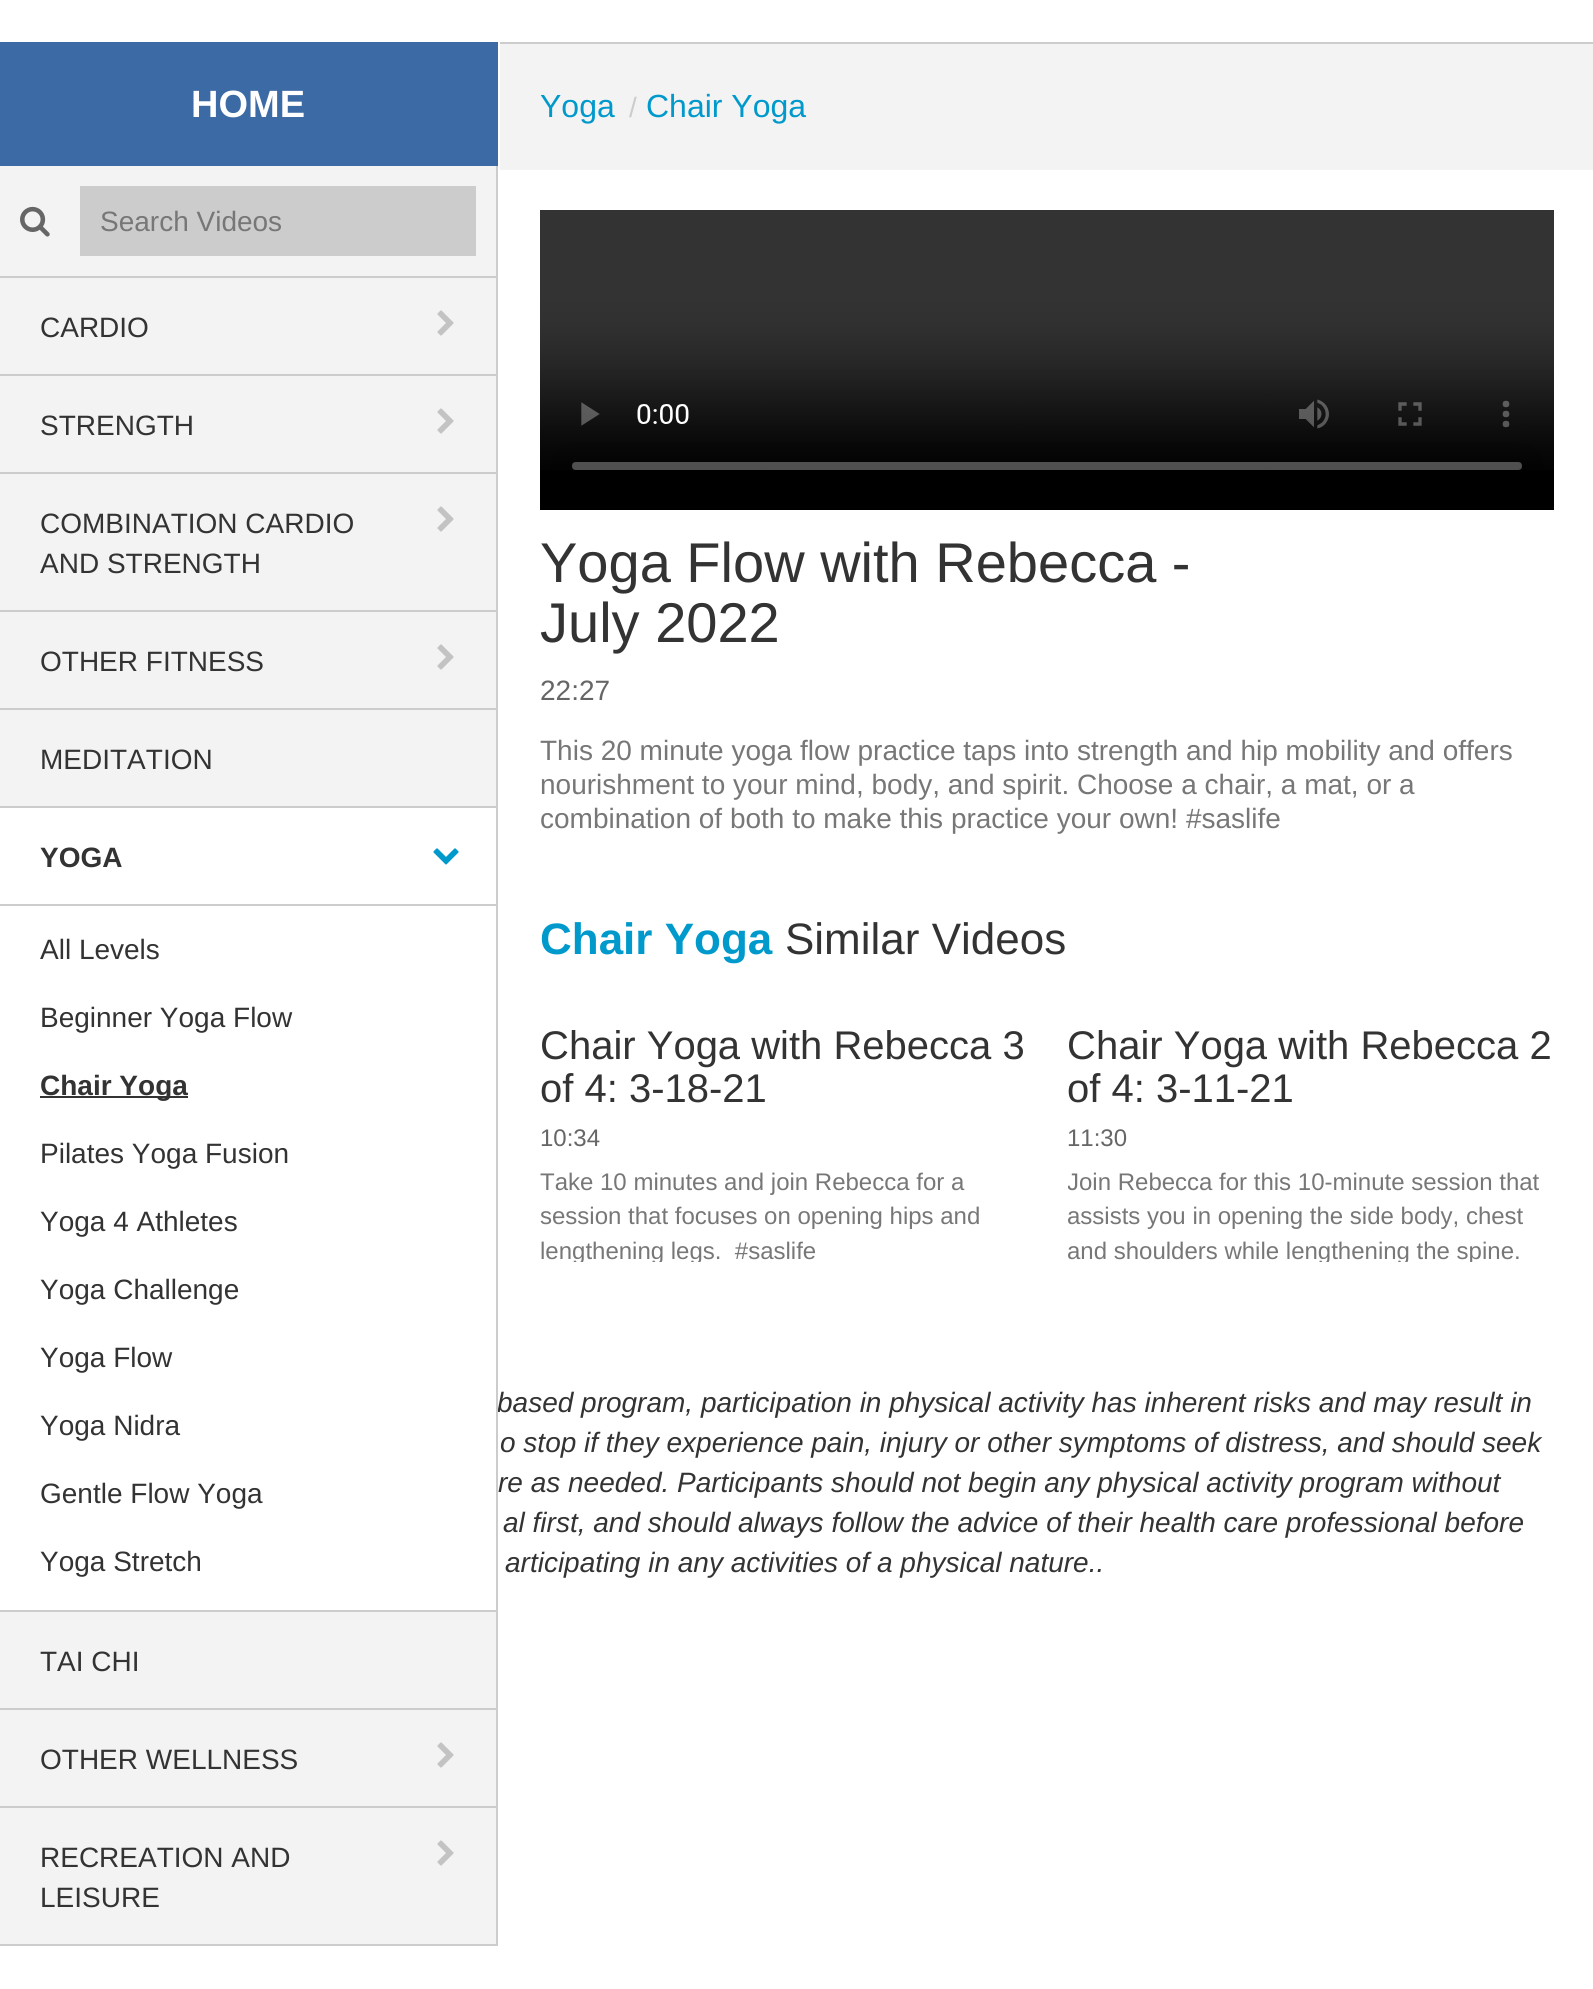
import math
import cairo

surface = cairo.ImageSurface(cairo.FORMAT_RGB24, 1593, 1989)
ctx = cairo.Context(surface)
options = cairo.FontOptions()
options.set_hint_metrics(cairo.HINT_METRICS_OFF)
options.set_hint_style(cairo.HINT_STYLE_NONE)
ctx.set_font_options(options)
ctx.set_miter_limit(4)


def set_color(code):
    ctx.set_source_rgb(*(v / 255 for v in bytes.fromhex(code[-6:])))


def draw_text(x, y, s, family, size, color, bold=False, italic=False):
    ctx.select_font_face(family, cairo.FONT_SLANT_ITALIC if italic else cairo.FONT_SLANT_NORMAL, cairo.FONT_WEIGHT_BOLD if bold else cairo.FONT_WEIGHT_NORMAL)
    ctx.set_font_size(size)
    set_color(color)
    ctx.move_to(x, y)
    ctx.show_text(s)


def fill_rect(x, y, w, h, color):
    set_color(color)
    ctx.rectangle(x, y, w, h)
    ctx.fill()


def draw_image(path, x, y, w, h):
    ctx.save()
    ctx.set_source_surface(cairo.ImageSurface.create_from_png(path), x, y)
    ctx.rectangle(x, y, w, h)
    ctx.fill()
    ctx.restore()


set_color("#ffffff")
ctx.paint()
fill_rect(0, 166, 496, 1778, "#f3f3f3")
draw_text(497, 1412, "based program, participation in physical activity has inherent risks and may result in", "Liberation Sans", 28, "#333333", italic=True)
fill_rect(496, 166, 2, 1780, "#cccccc")
fill_rect(0, 42, 498, 124, "#3b6aa4")
draw_text(191, 117, "HOME", "Liberation Sans", 38, "#ffffff", bold=True)
draw_image("assets/img1.png", 20, 206, 30, 31)
fill_rect(80, 186, 396, 70, "#cccccc")
draw_text(100, 231, "Search Videos", "Liberation Sans", 28, "#777777")
fill_rect(0, 276, 496, 2, "#cccccc")
fill_rect(0, 374, 496, 2, "#cccccc")
draw_text(40, 337, "CARDIO", "Liberation Sans", 28, "#333333")
draw_image("assets/img2.png", 437, 310, 17, 26)
fill_rect(0, 472, 496, 2, "#cccccc")
draw_text(40, 435, "STRENGTH", "Liberation Sans", 28, "#333333")
draw_image("assets/img2.png", 437, 408, 17, 26)
fill_rect(0, 610, 496, 2, "#cccccc")
draw_text(40, 533, "COMBINATION CARDIO", "Liberation Sans", 28, "#333333")
draw_text(40, 573, "AND STRENGTH", "Liberation Sans", 28, "#333333")
draw_image("assets/img2.png", 437, 506, 17, 26)
fill_rect(0, 708, 496, 2, "#cccccc")
draw_text(40, 671, "OTHER FITNESS", "Liberation Sans", 28, "#333333")
draw_image("assets/img2.png", 437, 644, 17, 26)
fill_rect(0, 806, 496, 2, "#cccccc")
draw_text(40, 769, "MEDITATION", "Liberation Sans", 28, "#333333")
fill_rect(0, 808, 496, 802, "#ffffff")
fill_rect(0, 1610, 496, 2, "#cccccc")
fill_rect(0, 904, 496, 2, "#cccccc")
draw_text(40, 867, "YOGA", "Liberation Sans", 28, "#333333", bold=True)
draw_image("assets/img3.png", 433, 848, 26, 17)
draw_text(40, 959, "All Levels", "Liberation Sans", 28, "#333333")
draw_text(40, 1027, "Beginner Yoga Flow", "Liberation Sans", 28, "#333333")
fill_rect(40, 1096, 148, 2, "#333333")
draw_text(40, 1095, "Chair Yoga", "Liberation Sans", 28, "#333333", bold=True)
draw_text(40, 1163, "Pilates Yoga Fusion", "Liberation Sans", 28, "#333333")
draw_text(40, 1231, "Yoga 4 Athletes", "Liberation Sans", 28, "#333333")
draw_text(40, 1299, "Yoga Challenge", "Liberation Sans", 28, "#333333")
draw_text(40, 1367, "Yoga Flow", "Liberation Sans", 28, "#333333")
draw_text(40, 1435, "Yoga Nidra", "Liberation Sans", 28, "#333333")
draw_text(40, 1503, "Gentle Flow Yoga", "Liberation Sans", 28, "#333333")
draw_text(40, 1571, "Yoga Stretch", "Liberation Sans", 28, "#333333")
fill_rect(0, 1708, 496, 2, "#cccccc")
draw_text(40, 1671, "TAI CHI", "Liberation Sans", 28, "#333333")
fill_rect(0, 1806, 496, 2, "#cccccc")
draw_text(40, 1769, "OTHER WELLNESS", "Liberation Sans", 28, "#333333")
draw_image("assets/img2.png", 437, 1742, 17, 26)
fill_rect(0, 1944, 496, 2, "#cccccc")
draw_text(40, 1867, "RECREATION AND", "Liberation Sans", 28, "#333333")
draw_text(40, 1907, "LEISURE", "Liberation Sans", 28, "#333333")
draw_image("assets/img2.png", 437, 1840, 17, 26)
fill_rect(500, 44, 1093, 126, "#f3f3f3")
fill_rect(500, 42, 1093, 2, "#cccccc")
draw_text(540, 117, "Yoga", "Liberation Sans", 32, "#0099cc")
draw_text(629, 117, "/", "Liberation Sans", 28, "#cccccc")
draw_text(646, 117, "Chair Yoga", "Liberation Sans", 32, "#0099cc")
fill_rect(540, 470, 1014, 40, "#000000")
draw_image("assets/img4.png", 540, 210, 1014, 260)
draw_text(540, 582, "Yoga Flow with Rebecca -", "Liberation Sans", 56, "#333333")
draw_text(540, 642, "July 2022", "Liberation Sans", 56, "#333333")
draw_text(540, 700, "22:27", "Liberation Sans", 28, "#666666")
draw_text(540, 760, "This 20 minute yoga flow practice taps into strength and hip mobility and offers", "Liberation Sans", 28, "#777777")
draw_text(540, 794, "nourishment to your mind, body, and spirit. Choose a chair, a mat, or a", "Liberation Sans", 28, "#777777")
draw_text(540, 828, "combination of both to make this practice your own! #saslife", "Liberation Sans", 28, "#777777")
draw_text(540, 954, "Chair Yoga", "Liberation Sans", 44, "#0099cc", bold=True)
draw_text(785, 954, "Similar Videos", "Liberation Sans", 44, "#333333")
draw_text(540, 1059, "Chair Yoga with Rebecca 3", "Liberation Sans", 40, "#333333")
draw_text(540, 1102, "of 4: 3-18-21", "Liberation Sans", 40, "#333333")
draw_text(540, 1146, "10:34", "Liberation Sans", 24, "#666666")
draw_text(540, 1190, "Take 10 minutes and join Rebecca for a", "Liberation Sans", 24, "#777777")
draw_text(540, 1224, "session that focuses on opening hips and", "Liberation Sans", 24, "#777777")
ctx.save()
ctx.rectangle(540, 1166, 488, 96)
ctx.clip()
draw_text(540, 1259, "lengthening legs.  #saslife", "Liberation Sans", 24, "#777777")
ctx.restore()
draw_text(1067, 1059, "Chair Yoga with Rebecca 2", "Liberation Sans", 40, "#333333")
draw_text(1067, 1102, "of 4: 3-11-21", "Liberation Sans", 40, "#333333")
draw_text(1067, 1146, "11:30", "Liberation Sans", 24, "#666666")
ctx.save()
ctx.rectangle(1068, 1166, 486, 96)
ctx.clip()
draw_text(1067, 1190, "Join Rebecca for this 10-minute session that", "Liberation Sans", 24, "#777777")
ctx.restore()
draw_text(1067, 1224, "assists you in opening the side body, chest", "Liberation Sans", 24, "#777777")
ctx.save()
ctx.rectangle(1068, 1166, 486, 96)
ctx.clip()
draw_text(1067, 1259, "and shoulders while lengthening the spine.", "Liberation Sans", 24, "#777777")
ctx.restore()
draw_text(500, 1452, "o stop if they experience pain, injury or other symptoms of distress, and should seek", "Liberation Sans", 28, "#333333", italic=True)
draw_text(498, 1492, "re as needed. Participants should not begin any physical activity program without", "Liberation Sans", 28, "#333333", italic=True)
draw_text(503, 1532, "al first, and should always follow the advice of their health care professional before", "Liberation Sans", 28, "#333333", italic=True)
draw_text(505, 1572, "articipating in any activities of a physical nature..", "Liberation Sans", 28, "#333333", italic=True)
surface.write_to_png("output.png")
